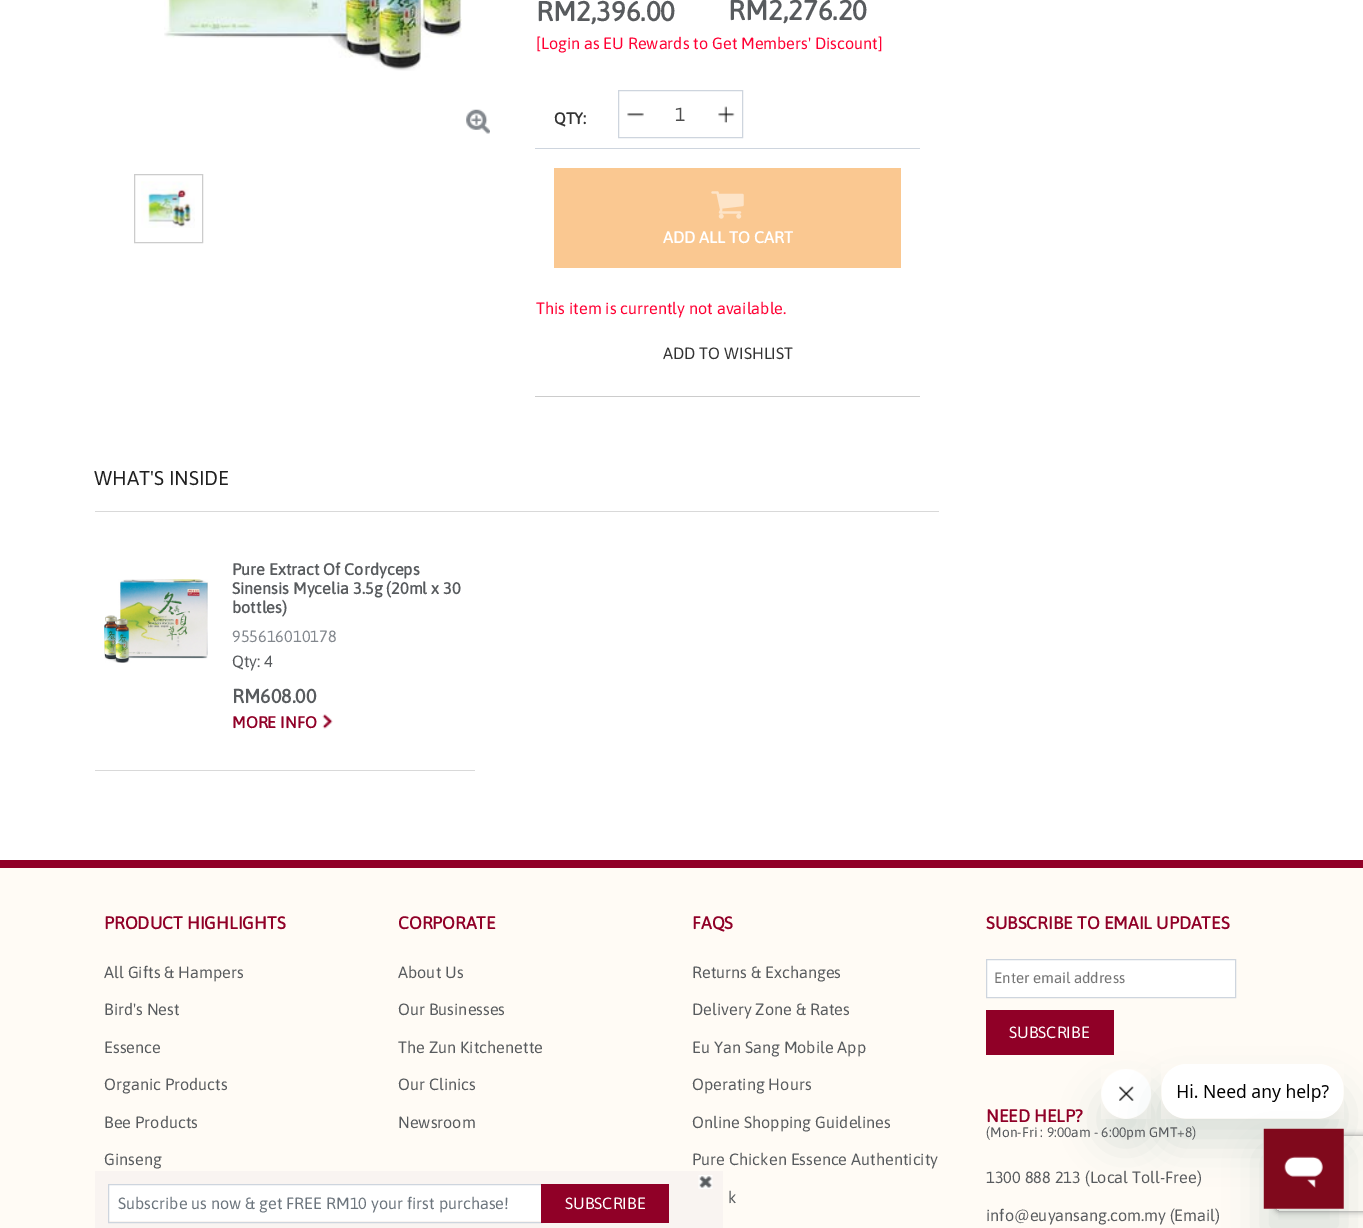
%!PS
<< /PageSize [1363 1228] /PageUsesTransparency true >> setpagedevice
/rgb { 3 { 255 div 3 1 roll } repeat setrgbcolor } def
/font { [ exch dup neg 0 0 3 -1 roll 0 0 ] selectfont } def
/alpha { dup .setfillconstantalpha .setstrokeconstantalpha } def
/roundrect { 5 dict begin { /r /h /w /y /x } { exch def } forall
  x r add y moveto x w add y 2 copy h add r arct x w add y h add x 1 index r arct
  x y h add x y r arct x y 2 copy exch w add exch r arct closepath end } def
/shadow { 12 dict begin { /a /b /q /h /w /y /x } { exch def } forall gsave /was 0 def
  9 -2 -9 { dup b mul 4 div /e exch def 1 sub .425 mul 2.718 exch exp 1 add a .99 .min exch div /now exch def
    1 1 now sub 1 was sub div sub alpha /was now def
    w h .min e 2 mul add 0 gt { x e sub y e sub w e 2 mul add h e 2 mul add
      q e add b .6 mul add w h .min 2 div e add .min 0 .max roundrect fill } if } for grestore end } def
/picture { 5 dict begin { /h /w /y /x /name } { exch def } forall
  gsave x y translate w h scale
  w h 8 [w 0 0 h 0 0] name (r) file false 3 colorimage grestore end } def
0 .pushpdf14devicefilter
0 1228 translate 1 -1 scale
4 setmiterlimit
255 255 255 rgb
0 0 1363 1228 rectfill
(img/1.rgb) 164 0 298 71 picture
(img/2.rgb) 466 109 24 25 picture
204 204 204 rgb
134.5 174.5 68 68 rectstroke
(img/3.rgb) 141 181 54 47 picture
206 213 222 rgb
618.5 90.5 124 47 rectstroke
(img/4.rgb) 627 113 17 4 picture
(img/5.rgb) 718 106 17 17 picture
535 148 385 1 rectfill
250 200 145 rgb
554 168 347 100 rectfill
(img/6.rgb) 711 191 33 28 picture
[
  [535 396 385 1 204 204 204]
  [95 511 844 1 217 217 217]
  [95 770 380 1 217 217 217]
] { aload pop rgb rectfill } forall
(img/7.rgb) 104 579 104 84 picture
(img/8.rgb) 322 714 11 15 picture
255 251 245 rgb
0 868 1363 360 rectfill
145 0 39 rgb
0 860 1363 8 rectfill
255 255 255 rgb
986.5 959.5 moveto 1235.5 959.5 lineto 1235.5 997.5 lineto 986.5 997.5 lineto closepath gsave fill grestore
206 213 222 rgb
stroke
144 0 39 rgb
986 1010 128 45 rectfill
249 244 241 rgb
95 1171 628 57 rectfill
(img/9.rgb) 698 1175 15 14 picture
255 255 255 rgb
109 1185 432 36 rectfill
206 213 222 rgb
108.5 1184.5 434 38 rectstroke
144 0 39 rgb
541 1184 128 39 rectfill
23 73 77 rgb
1101 1094 50 50 25 19 0.15 shadow
(img/11.rgb) 1101 1069 50 50 picture
1161 1089 183 55 25 19 0.15 shadow
(img/10.rgb) 1161 1064 183 55 picture
1264 1154 80 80 0 19 0.15 shadow
gsave
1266 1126 moveto 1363 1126 lineto 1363 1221 lineto 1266 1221 lineto closepath 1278.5 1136 moveto 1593.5 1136 lineto 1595 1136 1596 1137 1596 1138.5 curveto 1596 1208.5 lineto 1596 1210 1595 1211 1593.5 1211 curveto 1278.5 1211 lineto 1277 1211 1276 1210 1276 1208.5 curveto 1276 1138.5 lineto 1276 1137 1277 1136 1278.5 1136 curveto closepath eoclip newpath
128 128 128 rgb
1276 1136 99 75 2.5 3 1 shadow
grestore
(img/12.rgb) 1263 1128 81 81 picture
/Asap-Bold 27.5 font
88 91 94 rgb
536 21 moveto (RM2,396.00) show
728 20 moveto (RM2,276.20) show
/Asap-Regular 16.25 font
255 0 51 rgb
536 49 moveto ([Login as EU Rewards to Get Members' Discount]) show
/Asap-Bold 16 font
51 51 51 rgb
554 124 moveto (QTY:) show
/Asap-Regular 19 font
77 77 77 rgb
675 121 moveto (1) show
/Asap-Bold 16.25 font
255 255 255 rgb
663 243 moveto (ADD ALL TO CART) show
/Asap-Regular 16.25 font
255 0 51 rgb
536 314 moveto (This item is currently not available.) show
51 51 51 rgb
663 359 moveto (ADD TO WISHLIST) show
/Asap-Regular 20 font
32 32 32 rgb
94 485 moveto (WHAT'S INSIDE) show
/Asap-Bold 16.25 font
88 91 94 rgb
[
  [(Pure Extract Of Cordyceps) 232 575]
  [(Sinensis Mycelia 3.5g \(20ml x 30) 232 594]
  [(bottles\)) 232 613]
] { aload pop moveto show } forall
/Asap-Regular 16.25 font
130 135 141 rgb
232 642 moveto (955616010178) show
88 91 94 rgb
232 667 moveto (Qty: 4) show
/Asap-Bold 19.5 font
232 703 moveto (RM608.00) show
/Asap-Bold 16.25 font
144 0 39 rgb
232 728 moveto (MORE INFO) show
/Asap-Bold 17.5 font
104 929 moveto (PRODUCT HIGHLIGHTS) show
/Asap-Regular 16.25 font
88 91 94 rgb
[
  [(All Gifts & Hampers) 104 978]
  [(Bird's Nest) 104 1015]
  [(Essence) 104 1053]
  [(Organic Products) 104 1090]
  [(Bee Products) 104 1128]
  [(Ginseng) 104 1165]
] { aload pop moveto show } forall
/Asap-Bold 17.5 font
144 0 39 rgb
398 929 moveto (CORPORATE) show
/Asap-Regular 16.25 font
88 91 94 rgb
[
  [(About Us) 398 978]
  [(Our Businesses) 398 1015]
  [(The Zun Kitchenette) 398 1053]
  [(Our Clinics) 398 1090]
  [(Newsroom) 398 1128]
] { aload pop moveto show } forall
/Asap-Bold 17.5 font
144 0 39 rgb
692 929 moveto (FAQS) show
/Asap-Regular 16.25 font
88 91 94 rgb
[
  [(Returns & Exchanges) 692 978]
  [(Delivery Zone & Rates) 692 1015]
  [(Eu Yan Sang Mobile App) 692 1053]
  [(Operating Hours) 692 1090]
  [(Online Shopping Guidelines) 692 1128]
  [(Pure Chicken Essence Authenticity) 692 1165]
  [(k) 728 1203]
] { aload pop moveto show } forall
/Asap-Bold 17.5 font
144 0 39 rgb
986 929 moveto (SUBSCRIBE TO EMAIL UPDATES) show
/Asap-Regular 15 font
117 117 117 rgb
994 983 moveto (Enter email address) show
/Asap-Regular 16.25 font
255 255 255 rgb
1009 1038 moveto (SUBSCRIBE) show
/Asap-Bold 17.5 font
144 0 39 rgb
986 1122 moveto (NEED HELP?) show
/Asap-Regular 13.75 font
88 91 94 rgb
986 1137 moveto (\(Mon-Fri : 9:00am - 6:00pm GMT+8\)) show
/Asap-Regular 16.25 font
986 1183 moveto (1300 888 213 \(Local Toll-Free\)) show
986 1221 moveto (info@euyansang.com.my \(Email\)) show
108 117 125 rgb
118 1209 moveto (Subscribe us now & get FREE RM10 your first purchase!) show
255 255 255 rgb
565 1209 moveto (SUBSCRIBE) show
.poppdf14devicefilter showpage
